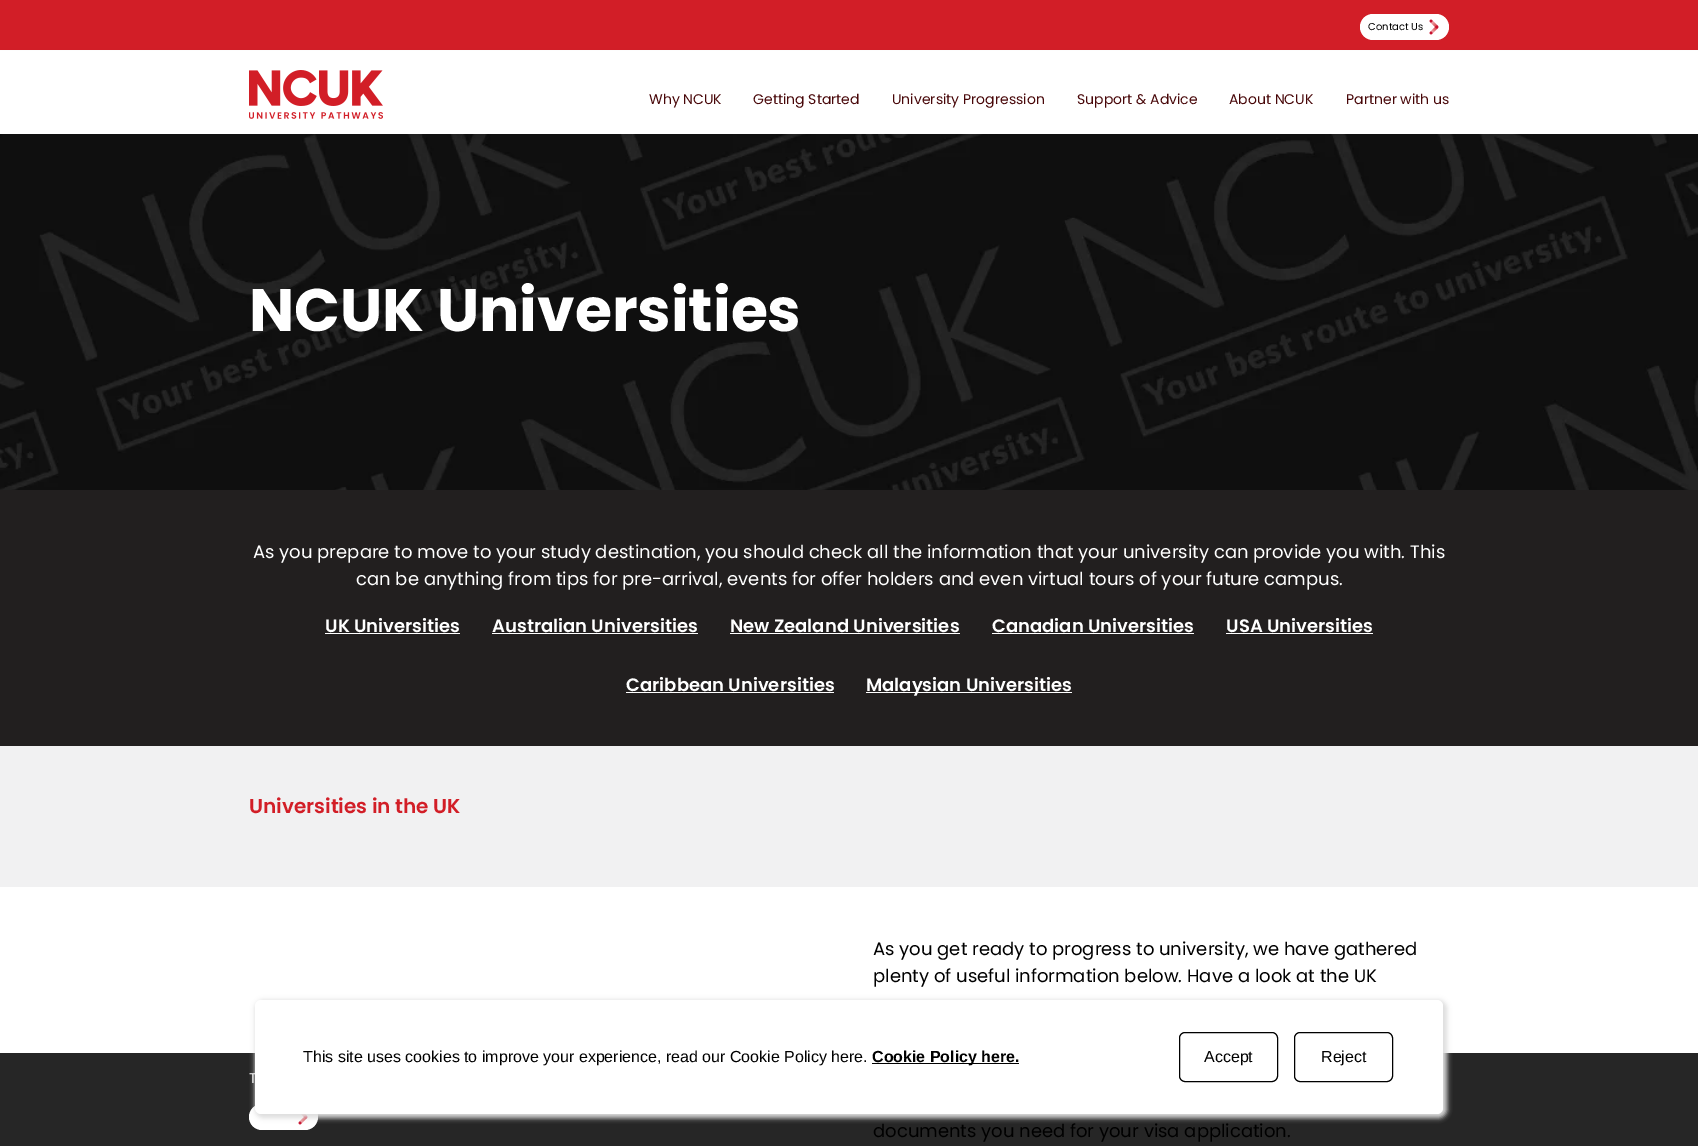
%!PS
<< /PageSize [1698 1146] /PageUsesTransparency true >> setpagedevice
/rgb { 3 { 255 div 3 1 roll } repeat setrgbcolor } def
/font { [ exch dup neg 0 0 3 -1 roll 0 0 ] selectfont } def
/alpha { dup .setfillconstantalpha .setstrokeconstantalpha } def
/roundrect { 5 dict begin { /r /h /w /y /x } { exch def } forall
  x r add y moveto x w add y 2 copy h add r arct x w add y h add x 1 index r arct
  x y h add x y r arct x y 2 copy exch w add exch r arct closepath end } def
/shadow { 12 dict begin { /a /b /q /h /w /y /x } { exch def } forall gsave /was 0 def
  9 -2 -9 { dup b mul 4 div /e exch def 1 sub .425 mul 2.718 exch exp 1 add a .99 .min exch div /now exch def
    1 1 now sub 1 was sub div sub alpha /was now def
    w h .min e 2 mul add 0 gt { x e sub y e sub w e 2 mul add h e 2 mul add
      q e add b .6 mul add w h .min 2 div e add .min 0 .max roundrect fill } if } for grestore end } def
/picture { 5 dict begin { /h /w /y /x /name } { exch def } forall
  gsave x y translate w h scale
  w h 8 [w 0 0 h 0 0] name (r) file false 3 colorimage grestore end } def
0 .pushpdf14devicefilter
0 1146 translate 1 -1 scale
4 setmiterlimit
255 255 255 rgb
0 0 1698 1146 rectfill
38 38 38 rgb
0 1053 1698 93 rectfill
210 30 39 rgb
0 0 1698 50 rectfill
255 255 255 rgb
1360 14 89 26 13 roundrect fill
(img/1.rgb) 1429 19 10 16 picture
(img/3.rgb) 0 134 1698 356 picture
0 0 0 rgb
1 55 1696 82 0 3 0.1 shadow
255 255 255 rgb
0 51 1698 83 rectfill
(img/2.rgb) 249 70 134 49 picture
[
  [0 490 1698 256 34 31 31]
  [325 633 135 1 255 255 255]
  [492 633 206 1 255 255 255]
  [730 633 230 1 255 255 255]
  [992 633 202 1 255 255 255]
  [1226 633 147 1 255 255 255]
  [626 692 208 1 255 255 255]
  [866 692 206 1 255 255 255]
  [0 746 1698 141 241 241 242]
] { aload pop rgb rectfill } forall
255 255 255 rgb
249 1104 69 26 13 roundrect fill
(img/4.rgb) 298 1114 10 11 picture
221 221 221 rgb
255 1000 1192 118 8 2.5 1 shadow
255 255 255 rgb
255 1000 1188 114 6 roundrect fill
0 0 0 rgb
872 1063 147 1 rectfill
1179.5 1032.5 98 49 5.5 roundrect stroke
1294.5 1032.5 98 49 5.5 roundrect stroke
/Poppins-Regular 10 font
1368 30 moveto (Contact Us) show
/Poppins-Regular 14 font
72 7 9 rgb
[
  [(Why NCUK) 649 104]
  [(Getting Started) 753 104]
  [(University Progression) 892 104]
  [(Support & Advice) 1077 104]
  [(About NCUK) 1229 104]
  [(Partner with us) 1346 104]
] { aload pop moveto show } forall
/Poppins-Bold 60 font
255 255 255 rgb
249 331 moveto (NCUK Universities) show
/Poppins-Regular 18 font
253 558 moveto (As you prepare to move to your study destination, you should check all the information that your university can provide you with. This) show
356 585 moveto (can be anything from tips for pre-arrival, events for offer holders and even virtual tours of your future campus.) show
/Poppins-SemiBold 18 font
[
  [(UK Universities) 325 632]
  [(Australian Universities) 492 632]
  [(New Zealand Universities) 730 632]
  [(Canadian Universities) 992 632]
  [(USA Universities) 1226 632]
  [(Caribbean Universities) 626 691]
  [(Malaysian Universities) 866 691]
] { aload pop moveto show } forall
/Poppins-SemiBold 20 font
210 30 39 rgb
249 813 moveto (Universities in the UK) show
/Poppins-Regular 18 font
0 0 0 rgb
[
  [(As you get ready to progress to university, we have gathered) 873 955]
  [(plenty of useful information below. Have a look at the UK) 873 982]
  [(documents you need for your visa application.) 873 1137]
] { aload pop moveto show } forall
/LiberationSans-Regular 16 font
303 1062 moveto (This site uses cookies to improve your experience, read our Cookie Policy here.) show
/LiberationSans-Bold 16 font
872 1062 moveto (Cookie Policy here.) show
/LiberationSans-Regular 16 font
1204 1062 moveto (Accept) show
1321 1062 moveto (Reject) show
/Poppins-Regular 14 font
255 255 255 rgb
249 1083 moveto (T) show
.poppdf14devicefilter showpage
